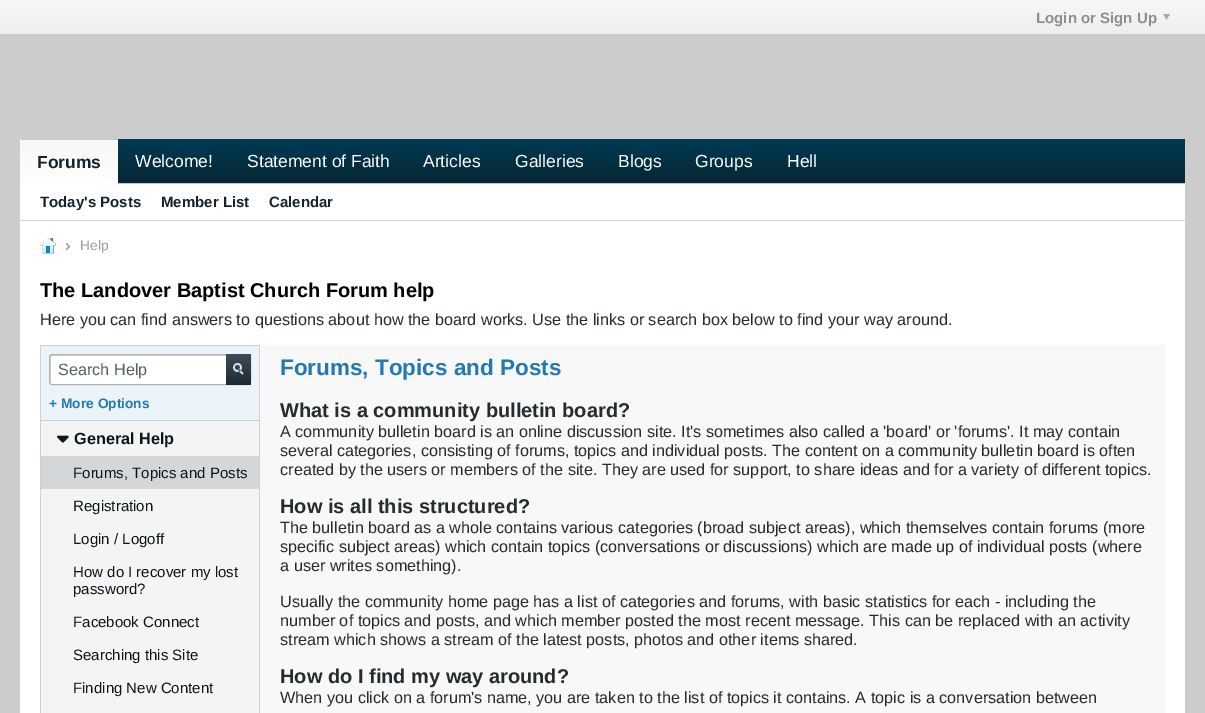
%!PS
<< /PageSize [1205 713] >> setpagedevice
/rgb { 3 { 255 div 3 1 roll } repeat setrgbcolor } def
/font { [ exch dup neg 0 0 3 -1 roll 0 0 ] selectfont } def
/roundrect { 5 dict begin { /r /h /w /y /x } { exch def } forall
  x r add y moveto x w add y 2 copy h add r arct x w add y h add x 1 index r arct
  x y h add x y r arct x y 2 copy exch w add exch r arct closepath end } def
/picture { 5 dict begin { /h /w /y /x /name } { exch def } forall
  gsave x y translate w h scale
  w h 8 [w 0 0 h 0 0] name (r) file false 3 colorimage grestore end } def
0 713 translate 1 -1 scale
4 setmiterlimit
204 204 204 rgb
0 0 1205 713 rectfill
gsave 0 0 moveto 1205 0 lineto 1205 34 lineto 0 34 lineto closepath clip newpath
<< /ShadingType 2 /ColorSpace /DeviceRGB /Coords [603 0 603 34] /Extend [true true] /Function << /FunctionType 2 /Domain [0 1] /C0 [0.973 0.973 0.973] /C1 [0.937 0.929 0.933] /N 1 >> >> shfill grestore
199 200 201 rgb
0 34 1205 1 rectfill
(img/1.rgb) 1163 14 7 6 picture
gsave 20 139 moveto 1185 139 lineto 1185 183 lineto 20 183 lineto closepath clip newpath
<< /ShadingType 2 /ColorSpace /DeviceRGB /Coords [603 139 603 183] /Extend [true true] /Function << /FunctionType 2 /Domain [0 1] /C0 [0.004 0.227 0.329] /C1 [0.02 0.153 0.2] /N 1 >> >> shfill grestore
196 199 200 rgb
118 183 1067 1 rectfill
gsave 21 139 moveto 117 139 lineto 117.5 139 118 139.5 118 140 curveto 20 140 lineto 20 139.5 20.5 139 21 139 curveto closepath clip newpath
<< /ShadingType 2 /ColorSpace /DeviceRGB /Coords [69 96 69 140] /Extend [true true] /Function << /FunctionType 2 /Domain [0 1] /C0 [0.969 0.969 0.969] /C1 [1 1 1] /N 1 >> >> shfill grestore
gsave 20 140 moveto 118 140 lineto 118 184 lineto 20 184 lineto closepath clip newpath
<< /ShadingType 2 /ColorSpace /DeviceRGB /Coords [69 140 69 184] /Extend [true true] /Function << /FunctionType 2 /Domain [0 1] /C0 [0.969 0.969 0.969] /C1 [1 1 1] /N 1 >> >> shfill grestore
[
  [21 139 97 1 196 199 200]
  [20 184 1165 36 255 255 255]
  [20 220 1165 1 211 213 214]
  [20 221 1165 492 255 255 255]
] { aload pop rgb rectfill } forall
(img/2.rgb) 40 238 16 16 picture
(img/3.rgb) 65 243 5 7 picture
[
  [41 346 218 74 235 244 249]
  [40 345 220 1 204 209 213]
  [259 345 1 368 204 209 213]
  [40 345 1 368 204 209 213]
] { aload pop rgb rectfill } forall
255 255 255 rgb
49 354 202 31 3 roundrect fill
213 213 213 rgb
53 356 moveto 250 356 lineto 248 355 lineto 52 355 lineto 51 355 50 356 50 357 curveto 50 374 lineto 50 375 49 383 51 384 curveto 51 362 lineto 51 361 50 356 53 356 curveto closepath fill
174 179 182 rgb
49.5 354.5 201 30 2.5 roundrect stroke
gsave 226 354 moveto 248 354 lineto 249.5 354 251 355.5 251 357 curveto 251 382 lineto 251 383.5 249.5 385 248 385 curveto 226 385 lineto closepath clip newpath
<< /ShadingType 2 /ColorSpace /DeviceRGB /Coords [239 354 239 385] /Extend [true true] /Function << /FunctionType 2 /Domain [0 1] /C0 [0.251 0.302 0.353] /C1 [0.11 0.161 0.192] /N 1 >> >> shfill grestore
(img/4.rgb) 233 363 11 12 picture
244 244 244 rgb
41 421 218 292 rectfill
204 209 213 rgb
41 420 218 1 rectfill
(img/5.rgb) 57 435 12 8 picture
211 215 218 rgb
41 456 218 33 rectfill
248 248 248 rgb
260 345 905 368 rectfill
/LiberationSans-Bold 15 font
142 142 142 rgb
1036 23 moveto (Login or Sign Up) show
/LiberationSans-Bold 17.5 font
19 36 47 rgb
37 168 moveto (Forums) show
/LiberationSans-Regular 17.5 font
255 255 255 rgb
[
  [(Welcome!) 135 167]
  [(Statement of Faith) 247 167]
  [(Articles) 423 167]
  [(Galleries) 515 167]
  [(Blogs) 618 167]
  [(Groups) 695 167]
  [(Hell) 787 167]
] { aload pop moveto show } forall
/LiberationSans-Bold 15 font
19 36 47 rgb
[
  [(Today's Posts) 40 207]
  [(Member List) 161 207]
  [(Calendar) 269 207]
] { aload pop moveto show } forall
/LiberationSans-Regular 13.75 font
158 157 157 rgb
80 250 moveto (Help) show
/LiberationSans-Bold 20 font
0 0 0 rgb
40 297 moveto (The Landover Baptist Church Forum help) show
/LiberationSans-Regular 16.22 font
37 44 47 rgb
40 325 moveto (Here you can find answers to questions about how the board works. Use the links or search box below to find your way around.) show
85 96 101 rgb
58 375 moveto (Search Help) show
/LiberationSans-Bold 13.75 font
35 121 181 rgb
49 408 moveto (+ More Options) show
/LiberationSans-Bold 16.22 font
9 22 27 rgb
74 444 moveto (General Help) show
/LiberationSans-Regular 15 font
[
  [(Forums, Topics and Posts) 73 478]
  [(Registration) 73 511]
  [(Login / Logoff) 73 544]
  [(How do I recover my lost) 73 577]
  [(password?) 73 594]
  [(Facebook Connect) 73 627]
  [(Searching this Site) 73 660]
  [(Finding New Content) 73 693]
] { aload pop moveto show } forall
/LiberationSans-Bold 22.5 font
35 121 181 rgb
280 375 moveto (Forums, Topics and Posts) show
/LiberationSans-Bold 20 font
37 44 47 rgb
280 417 moveto (What is a community bulletin board?) show
/LiberationSans-Regular 16.22 font
[
  [(A community bulletin board is an online discussion site. It's sometimes also called a 'board' or 'forums'. It may contain) 280 437]
  [(several categories, consisting of forums, topics and individual posts. The content on a community bulletin board is often) 280 456]
  [(created by the users or members of the site. They are used for support, to share ideas and for a variety of different topics.) 280 475]
] { aload pop moveto show } forall
/LiberationSans-Bold 20 font
280 513 moveto (How is all this structured?) show
/LiberationSans-Regular 16.22 font
[
  [(The bulletin board as a whole contains various categories \(broad subject areas\), which themselves contain forums \(more) 280 533]
  [(specific subject areas\) which contain topics \(conversations or discussions\) which are made up of individual posts \(where) 280 552]
  [(a user writes something\).) 280 571]
  [(Usually the community home page has a list of categories and forums, with basic statistics for each - including the) 280 607]
  [(number of topics and posts, and which member posted the most recent message. This can be replaced with an activity) 280 626]
  [(stream which shows a stream of the latest posts, photos and other items shared.) 280 645]
] { aload pop moveto show } forall
/LiberationSans-Bold 20 font
280 683 moveto (How do I find my way around?) show
/LiberationSans-Regular 16.22 font
280 703 moveto (When you click on a forum's name, you are taken to the list of topics it contains. A topic is a conversation between) show
showpage
